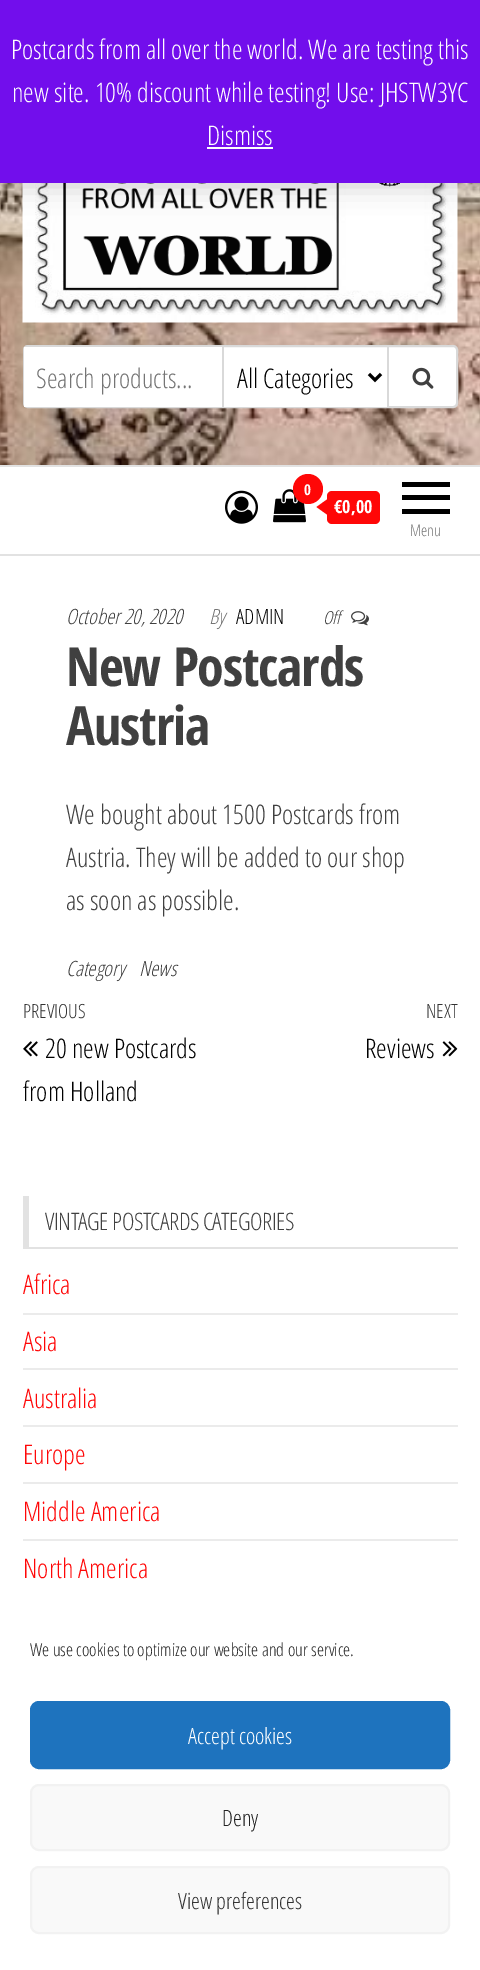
%!PS
<< /PageSize [480 1970] /PageUsesTransparency true >> setpagedevice
/rgb { 3 { 255 div 3 1 roll } repeat setrgbcolor } def
/font { [ exch dup neg 0 0 3 -1 roll 0 0 ] selectfont } def
/alpha { dup .setfillconstantalpha .setstrokeconstantalpha } def
/circle { newpath 0 360 arc closepath } def
/roundrect { 5 dict begin { /r /h /w /y /x } { exch def } forall
  x r add y moveto x w add y 2 copy h add r arct x w add y h add x 1 index r arct
  x y h add x y r arct x y 2 copy exch w add exch r arct closepath end } def
/shadow { 12 dict begin { /a /b /q /h /w /y /x } { exch def } forall gsave /was 0 def
  9 -2 -9 { dup b mul 4 div /e exch def 1 sub .425 mul 2.718 exch exp 1 add a .99 .min exch div /now exch def
    1 1 now sub 1 was sub div sub alpha /was now def
    w h .min e 2 mul add 0 gt { x e sub y e sub w e 2 mul add h e 2 mul add
      q e add b .6 mul add w h .min 2 div e add .min 0 .max roundrect fill } if } for grestore end } def
/picture { 5 dict begin { /h /w /y /x /name } { exch def } forall
  gsave x y translate w h scale
  w h 8 [w 0 0 h 0 0] name (r) file false 3 colorimage grestore end } def
0 .pushpdf14devicefilter
0 1970 translate 1 -1 scale
4 setmiterlimit
255 255 255 rgb
0 0 480 1970 rectfill
(img/1.rgb) 0 183 480 282 picture
(img/2.rgb) 22 183 436 140 picture
0 0 0 rgb
0 2 480 183 0 13.5 0.2 shadow
114 14 236 rgb
0 0 480 183 rectfill
252 251 254 rgb
207 147 66 2 rectfill
255 255 255 rgb
24 346 433 61 4 roundrect gsave fill grestore
217 217 217 rgb
2 setlinewidth
stroke
[
  [24 347 198 60 255 255 255]
  [222 347 2 60 217 217 217]
  [224 406 163 1 255 255 255]
] { aload pop rgb rectfill } forall
0 0 0 rgb
3 setlinewidth
369 374 moveto 375 380 lineto 381 374 lineto stroke
217 217 217 rgb
387 347 2 60 rectfill
(img/3.rgb) 412 367 22 22 picture
226 226 226 rgb
0 465 480 2 rectfill
0 554 480 2 rectfill
(img/4.rgb) 225 490 33 34 picture
(img/5.rgb) 273 489 33 34 picture
255 7 7 rgb
308 489 15 circle fill
327 491 53 33 5 roundrect fill
327 499.5 moveto 327 514.5 lineto 316.5 507 lineto closepath fill
[
  [402 482 48 5 0 0 0]
  [402 495 48 5 0 0 0]
  [402 509 48 5 0 0 0]
] { aload pop rgb rectfill } forall
(img/6.rgb) 351 611 18 15 picture
(img/7.rgb) 23 1041 15 16 picture
(img/8.rgb) 442 1041 16 16 picture
[
  [23 1247 435 2 226 226 226]
  [23 1196 6 51 226 226 226]
  [23 1313 435 2 235 235 235]
  [23 1368 435 2 235 235 235]
  [23 1425 435 2 235 235 235]
  [23 1482 435 2 235 235 235]
  [23 1539 435 2 235 235 235]
] { aload pop rgb rectfill } forall
30 115 190 rgb
31 1702 418 66 8 roundrect gsave fill grestore
2 setlinewidth
stroke
249 249 249 rgb
31 1785 418 65 8 roundrect gsave fill grestore
242 242 242 rgb
stroke
249 249 249 rgb
31 1867 418 66 8 roundrect gsave fill grestore
242 242 242 rgb
stroke
/OpenSansCondensed-Light 27 font
255 255 255 rgb
[
  [(Postcards from all over the world. We are testing this) 11 59]
  [(new site. 10% discount while testing! Use: JHSTW3YC) 12 102]
  [(Dismiss) 207 145]
] { aload pop moveto show } forall
117 117 117 rgb
36 388 moveto (Search products...) show
0 0 0 rgb
237 388 moveto (All Categories) show
/OpenSansCondensed-Bold 15 font
255 255 255 rgb
304 495 moveto (0) show
/OpenSansCondensed-Bold 18 font
334 513 moveto (€0,00) show
/OpenSansCondensed-Light 16 font
117 117 117 rgb
410 536 moveto (Menu) show
/OpenSansCondensed-LightItalic 21 font
64 64 64 rgb
66 624 moveto (October 20, 2020) show
117 117 117 rgb
209 624 moveto (By) show
/OpenSansCondensed-Light 21 font
0 0 0 rgb
236 624 moveto (ADMIN) show
/OpenSansCondensed-LightItalic 18 font
64 64 64 rgb
323 624 moveto (Off) show
/OpenSansCondensed-Bold 54 font
66 686 moveto -1.1 0 (New Postcards) ashow
66 745 moveto -1.1 0 (Austria) ashow
/OpenSansCondensed-Light 27 font
[
  [(We bought about 1500 Postcards from) 66 824]
  [(Austria. They will be added to our shop) 66 867]
  [(as soon as possible.) 66 910]
] { aload pop moveto show } forall
/OpenSansCondensed-LightItalic 21 font
66 976 moveto (Category) show
139 976 moveto (News) show
/OpenSansCondensed-Light 19.5 font
51 51 51 rgb
23 1018 moveto (PREVIOUS) show
/OpenSansCondensed-Light 27 font
0 0 0 rgb
45 1058 moveto (20 new Postcards) show
23 1101 moveto (from Holland) show
/OpenSansCondensed-Light 19.5 font
51 51 51 rgb
426 1018 moveto (NEXT) show
/OpenSansCondensed-Light 27 font
0 0 0 rgb
365 1058 moveto (Reviews) show
/OpenSansCondensed-Light 24 font
64 64 64 rgb
45 1230 moveto -0.5 0 (VINTAGE POSTCARDS CATEGORIES) ashow
/OpenSansCondensed-Light 27 font
255 7 7 rgb
[
  [(Africa) 23 1294]
  [(Asia) 23 1351]
  [(Australia) 23 1408]
  [(Europe) 23 1464]
  [(Middle America) 23 1521]
  [(North America) 23 1578]
] { aload pop moveto show } forall
/OpenSansCondensed-Light 18 font
34 34 34 rgb
30 1656 moveto (We use cookies to optimize our website and our service.) show
/OpenSansCondensed-Light 22.5 font
255 255 255 rgb
188 1744 moveto (Accept cookies) show
34 34 34 rgb
222 1826 moveto (Deny) show
51 51 51 rgb
178 1909 moveto (View preferences) show
.poppdf14devicefilter showpage
